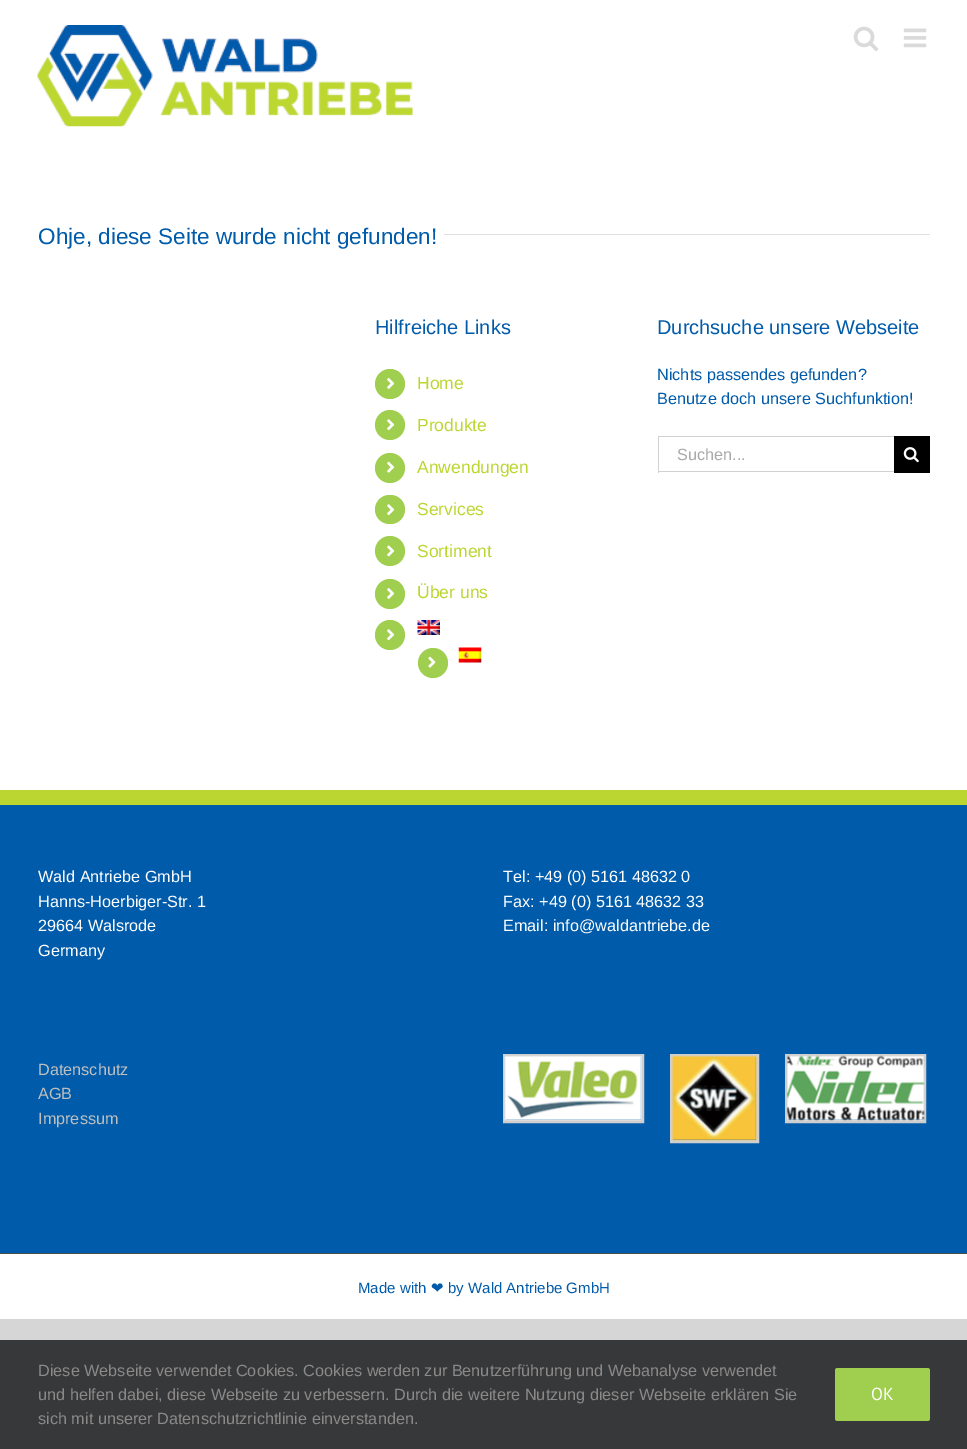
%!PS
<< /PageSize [967 1449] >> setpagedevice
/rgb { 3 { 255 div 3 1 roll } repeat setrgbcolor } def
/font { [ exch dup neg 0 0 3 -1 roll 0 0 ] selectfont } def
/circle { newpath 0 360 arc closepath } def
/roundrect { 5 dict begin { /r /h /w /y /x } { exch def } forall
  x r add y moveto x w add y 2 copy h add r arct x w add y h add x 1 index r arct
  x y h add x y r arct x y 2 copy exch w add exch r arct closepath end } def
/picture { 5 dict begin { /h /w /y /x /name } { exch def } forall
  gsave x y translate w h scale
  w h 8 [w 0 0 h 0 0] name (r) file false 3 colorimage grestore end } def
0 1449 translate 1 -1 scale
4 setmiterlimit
215 214 214 rgb
0 0 967 1449 rectfill
255 255 255 rgb
0 0 967 1319 rectfill
(img/1.rgb) 37 25 376 102 picture
(img/2.rgb) 853 26 25 25 picture
(img/3.rgb) 903 28 24 20 picture
224 222 222 rgb
444 234 486 1 rectfill
160 206 78 rgb
390 384 15 circle fill
(img/4.rgb) 387 378 8 11 picture
390 425 15 circle fill
(img/5.rgb) 387 419 8 12 picture
390 468 15 circle fill
(img/6.rgb) 387 461 8 12 picture
375 495 30 29 14.5 roundrect fill
(img/5.rgb) 387 504 8 12 picture
390 551 15 circle fill
(img/7.rgb) 387 545 8 12 picture
390 594 15 circle fill
(img/4.rgb) 387 588 8 11 picture
390 635 15 circle fill
(img/5.rgb) 387 629 8 12 picture
(img/8.rgb) 417 620 23 15 picture
433 663 15 circle fill
(img/9.rgb) 428 656 8 12 picture
(img/10.rgb) 458 647 24 16 picture
[
  [658 436 236 1 210 210 210]
  [658 471 236 1 210 210 210]
  [658 436 1 37 210 210 210]
  [894 436 36 37 0 0 0]
] { aload pop rgb rectfill } forall
(img/11.rgb) 903 447 16 16 picture
0 91 170 rgb
0 805 967 448 rectfill
188 214 49 rgb
0 790 967 15 rectfill
207 207 207 rgb
3 setlinewidth
504.5 1055.5 138 66 rectstroke
(img/12.rgb) 504 1055 138 66 picture
671.5 1055.5 86 86 rectstroke
(img/13.rgb) 672 1055 85 86 picture
786.5 1055.5 138 66 rectstroke
(img/14.rgb) 787 1055 138 66 picture
75 76 77 rgb
0 1253 967 1 rectfill
54 56 57 rgb
0 1340 967 109 rectfill
160 206 78 rgb
835 1368 95 53 2.5 roundrect fill
/LiberationSans-Regular 22.5 font
0 91 170 rgb
38 244 moveto (Ohje, diese Seite wurde nicht gefunden!) show
/LiberationSans-Regular 20 font
375 334 moveto (Hilfreiche Links) show
/LiberationSans-Regular 17.5 font
188 214 49 rgb
[
  [(Home) 417 389]
  [(Produkte) 417 431]
  [(Anwendungen) 417 473]
  [(Services) 417 515]
  [(Sortiment) 417 557]
  [(Über uns) 417 598]
] { aload pop moveto show } forall
/LiberationSans-Regular 20 font
0 91 170 rgb
657 334 moveto (Durchsuche unsere Webseite) show
/LiberationSans-Regular 16.25 font
657 380 moveto (Nichts passendes gefunden?) show
657 404 moveto (Benutze doch unsere Suchfunktion!) show
170 169 169 rgb
677 460 moveto (Suchen...) show
255 255 255 rgb
[
  [(Wald Antriebe GmbH) 38 882]
  [(Hanns-Hoerbiger-Str. 1) 38 907]
  [(29664 Walsrode) 38 931]
  [(Germany) 38 956]
  [(Tel: +49 \(0\) 5161 48632 0) 503 882]
  [(Fax: +49 \(0\) 5161 48632 33) 503 907]
  [(Email: info@waldantriebe.de) 503 931]
] { aload pop moveto show } forall
191 191 191 rgb
[
  [(Datenschutz) 38 1075]
  [(AGB) 38 1099]
  [(Impressum) 38 1124]
] { aload pop moveto show } forall
/LiberationSans-Regular 15 font
0 91 170 rgb
358 1293 moveto (Made with) show
/DejaVuSans-Regular 15 font
431 1293 moveto (❤) show
/LiberationSans-Regular 15 font
448 1293 moveto (by Wald Antriebe GmbH) show
/LiberationSans-Regular 16.25 font
140 137 137 rgb
[
  [(Diese Webseite verwendet Cookies. Cookies werden zur Benutzerführung und Webanalyse verwendet) 38 1376]
  [(und helfen dabei, diese Webseite zu verbessern. Durch die weitere Nutzung dieser Webseite erklären Sie) 38 1400]
  [(sich mit unserer Datenschutzrichtlinie einverstanden.) 38 1424]
] { aload pop moveto show } forall
/PTSans-Regular 17.5 font
255 255 255 rgb
871 1400 moveto (OK) show
showpage
